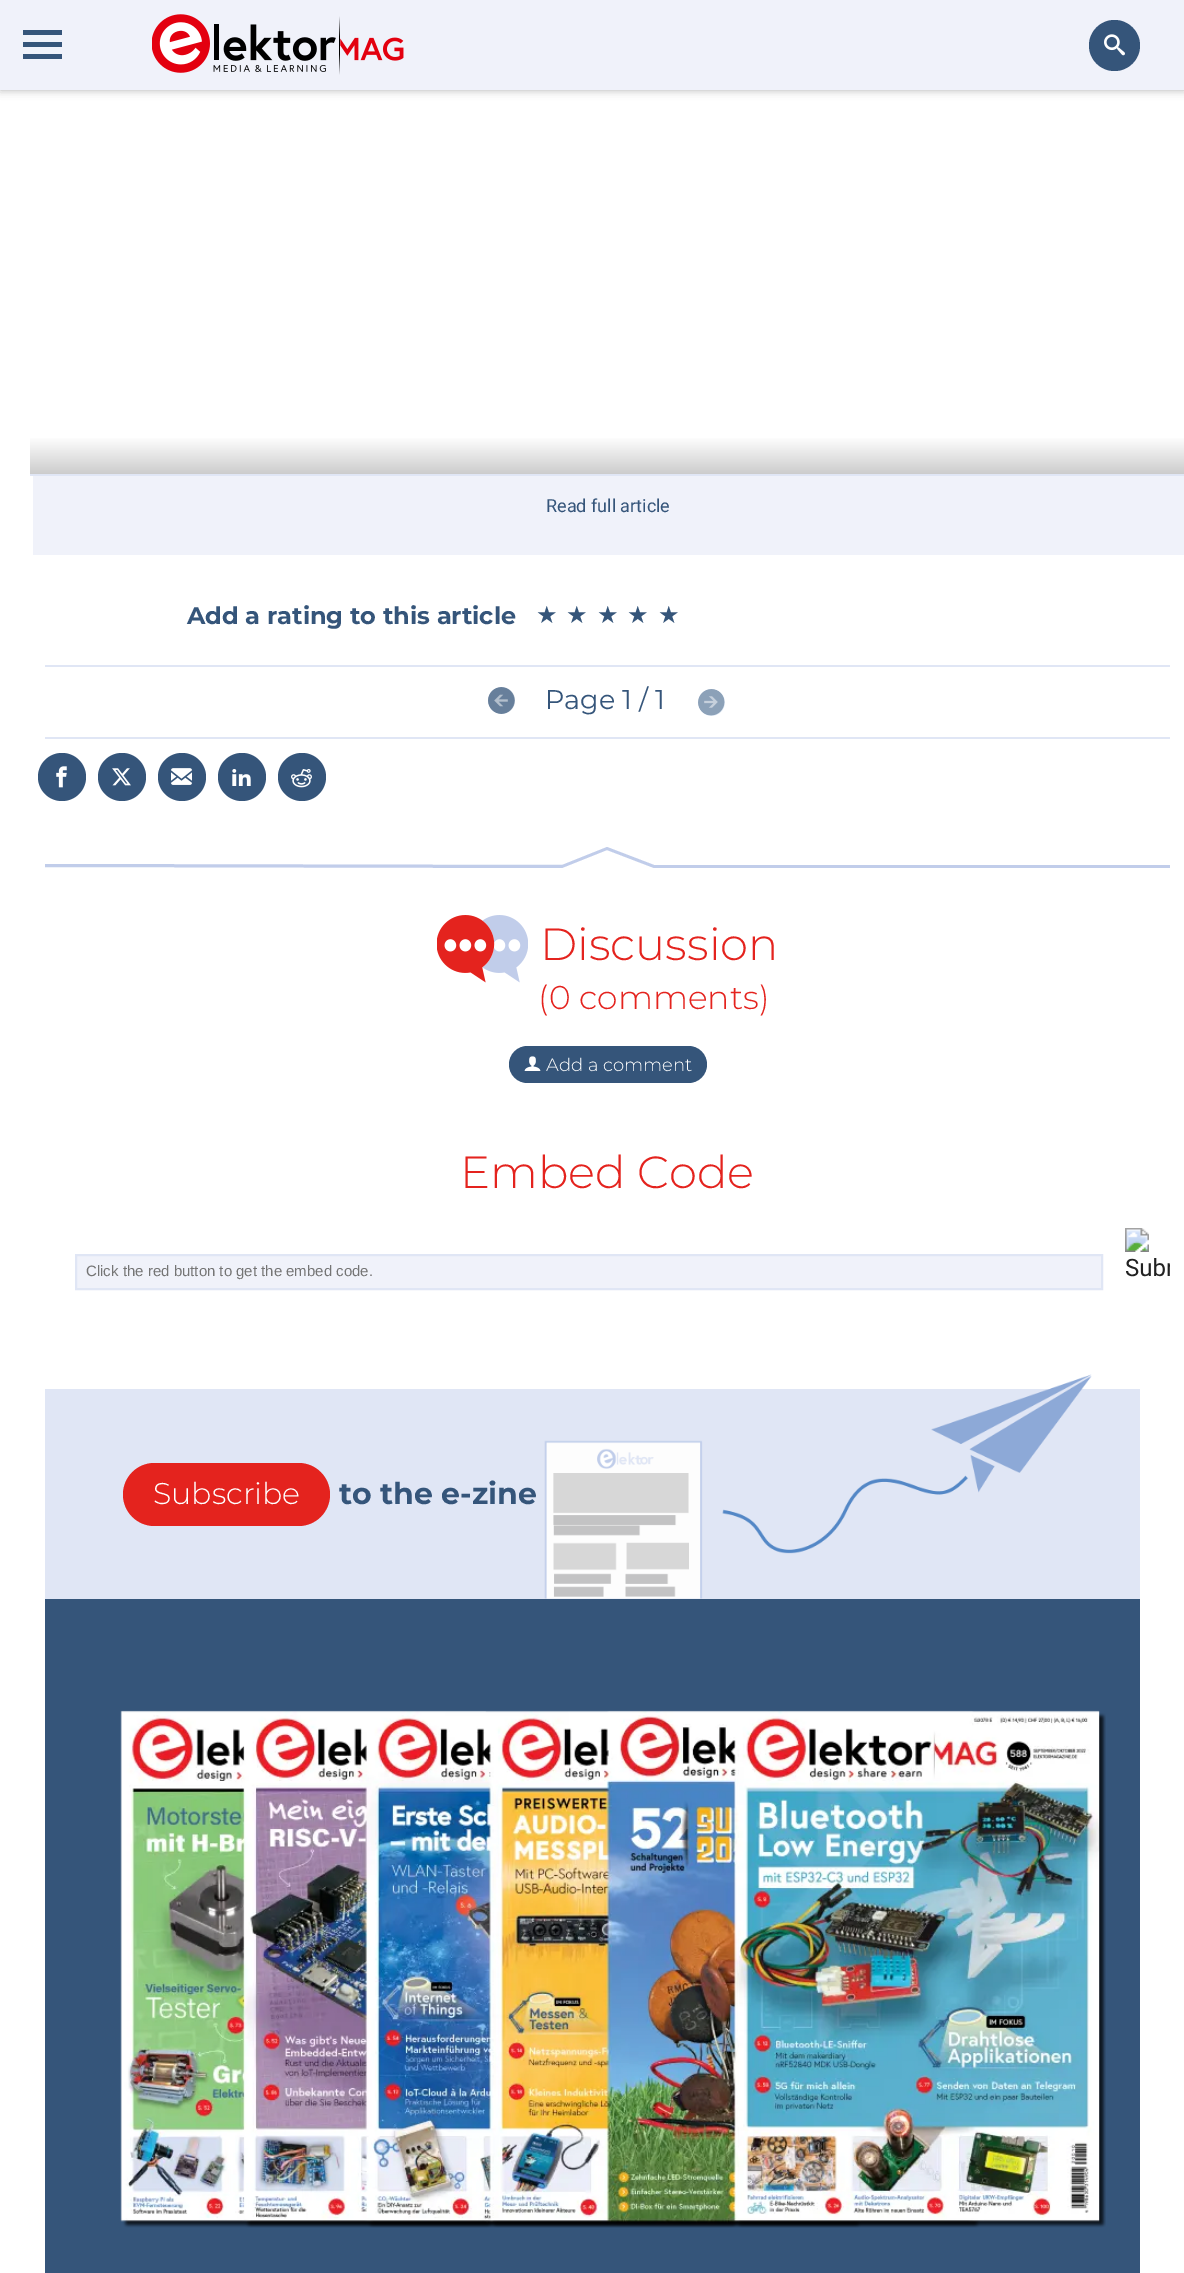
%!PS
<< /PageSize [1184 2273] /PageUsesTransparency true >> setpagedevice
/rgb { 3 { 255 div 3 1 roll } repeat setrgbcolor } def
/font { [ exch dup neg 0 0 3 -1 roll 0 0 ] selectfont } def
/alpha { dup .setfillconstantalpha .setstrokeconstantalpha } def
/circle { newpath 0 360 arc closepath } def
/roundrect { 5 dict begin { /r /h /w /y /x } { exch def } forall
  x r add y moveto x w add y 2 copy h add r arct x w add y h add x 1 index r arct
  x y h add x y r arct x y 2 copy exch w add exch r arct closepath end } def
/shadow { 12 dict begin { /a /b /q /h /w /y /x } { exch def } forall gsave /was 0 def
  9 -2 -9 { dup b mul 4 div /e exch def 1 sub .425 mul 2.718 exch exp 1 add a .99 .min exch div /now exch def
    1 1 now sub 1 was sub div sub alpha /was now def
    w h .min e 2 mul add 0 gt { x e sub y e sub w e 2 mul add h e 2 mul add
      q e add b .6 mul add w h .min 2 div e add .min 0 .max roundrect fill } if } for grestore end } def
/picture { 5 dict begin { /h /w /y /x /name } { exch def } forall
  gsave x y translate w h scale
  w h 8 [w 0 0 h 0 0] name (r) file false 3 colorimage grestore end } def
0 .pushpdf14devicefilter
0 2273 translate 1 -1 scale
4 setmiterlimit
255 255 255 rgb
0 0 1184 2273 rectfill
0 0 0 rgb
0 0 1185 90 0 4.5 0.3 shadow
[
  [0 0 1184 90 240 242 250]
  [23 30 39 5 53 85 122]
  [23 42 39 5 53 85 122]
  [23 54 39 5 53 85 122]
] { aload pop rgb rectfill } forall
(img/1.rgb) 152 14 252 61 picture
1114.5 45.5 25.5 circle fill
(img/2.rgb) 1104 34 21 22 picture
224 230 245 rgb
30 474 1154 2 rectfill
gsave 30 438 moveto 1184 438 lineto 1184 474 lineto 30 474 lineto closepath clip newpath
<< /ShadingType 2 /ColorSpace /DeviceRGB /Coords [628 414 628 474] /Extend [true true] /Function << /FunctionType 3 /Domain [0 1] /Functions [<< /FunctionType 2 /Domain [0 1] /C0 [1 1 1] /C1 [1 1 1] /N 1 >> << /FunctionType 2 /Domain [0 1] /C0 [1 1 1] /C1 [0.8 0.8 0.8] /N 1 >>] /Bounds [0.37] /Encode [0 1 0 1] >> >> shfill grestore
[
  [33 476 12 79 240 242 250]
  [45 476 1139 79 240 242 250]
  [45 665 1125 2 224 230 245]
  [45 737 1125 2 224 230 245]
] { aload pop rgb rectfill } forall
154 170 189 rgb
501.5 700.5 13.5 circle fill
(img/3.rgb) 488 687 27 27 picture
228 237 247 rgb
711.5 702.5 13.5 circle fill
(img/4.rgb) 698 689 27 27 picture
53 85 122 rgb
62 777 24 circle fill
(img/5.rgb) 56 766 11 22 picture
122 777 24 circle fill
(img/6.rgb) 112 768 19 18 picture
182 777 24 circle fill
(img/7.rgb) 171 768 21 17 picture
242 777 24 circle fill
(img/8.rgb) 232 769 19 17 picture
302 777 24 circle fill
(img/9.rgb) 291 768 21 20 picture
193 205 234 rgb
1170 868 moveto 654 868 lineto 607 850 lineto 562 868 lineto 45 867 lineto 45 864 lineto 562 865 lineto 607 847 lineto 654 865 lineto 1170 865 lineto closepath fill
(img/10.rgb) 437 915 91 68 picture
53 85 122 rgb
509 1046 198 37 18.5 roundrect fill
(img/11.rgb) 524 1056 17 15 picture
240 242 250 rgb
76 1255 moveto 1102 1255 lineto 1102 1289 lineto 76 1289 lineto closepath gsave fill grestore
224 230 245 rgb
2 setlinewidth
stroke
(img/12.rgb) 1125 1228 45 49 picture
45 1389 1095 210 rectfill
228 35 30 rgb
123 1463 207 63 31.5 roundrect fill
(img/13.rgb) 544 1374 548 225 picture
53 85 122 rgb
45 1599 1095 674 rectfill
(img/14.rgb) 120 1710 986 518 picture
/Roboto-Regular 18 font
546 512 moveto (Read full article) show
/Montserrat-Bold 24 font
187 624 moveto (Add a rating to this article) show
/DejaVuSans-Regular 24 font
[
  [(★) 536 623]
  [(★) 566 623]
  [(★) 597 623]
  [(★) 627 623]
  [(★) 658 623]
] { aload pop moveto show } forall
/Montserrat-Regular 27 font
545 709 moveto (Page 1 / 1) show
/Montserrat-Light 45 font
228 35 30 rgb
540 960 moveto (Discussion) show
/Montserrat-Light 33 font
538 1009 moveto (\(0 comments\)) show
/Montserrat-Light 18 font
255 255 255 rgb
546 1071 moveto (Add a comment) show
/Montserrat-Light 45 font
228 35 30 rgb
460 1188 moveto (Embed Code) show
/LiberationSans-Regular 15 font
117 117 117 rgb
86 1276 moveto (Click the red button to get the embed code.) show
/Montserrat-Light 30 font
255 255 255 rgb
153 1504 moveto (Subscribe) show
/Montserrat-Bold 30 font
53 85 122 rgb
339 1504 moveto (to the e-zine) show
.poppdf14devicefilter showpage
